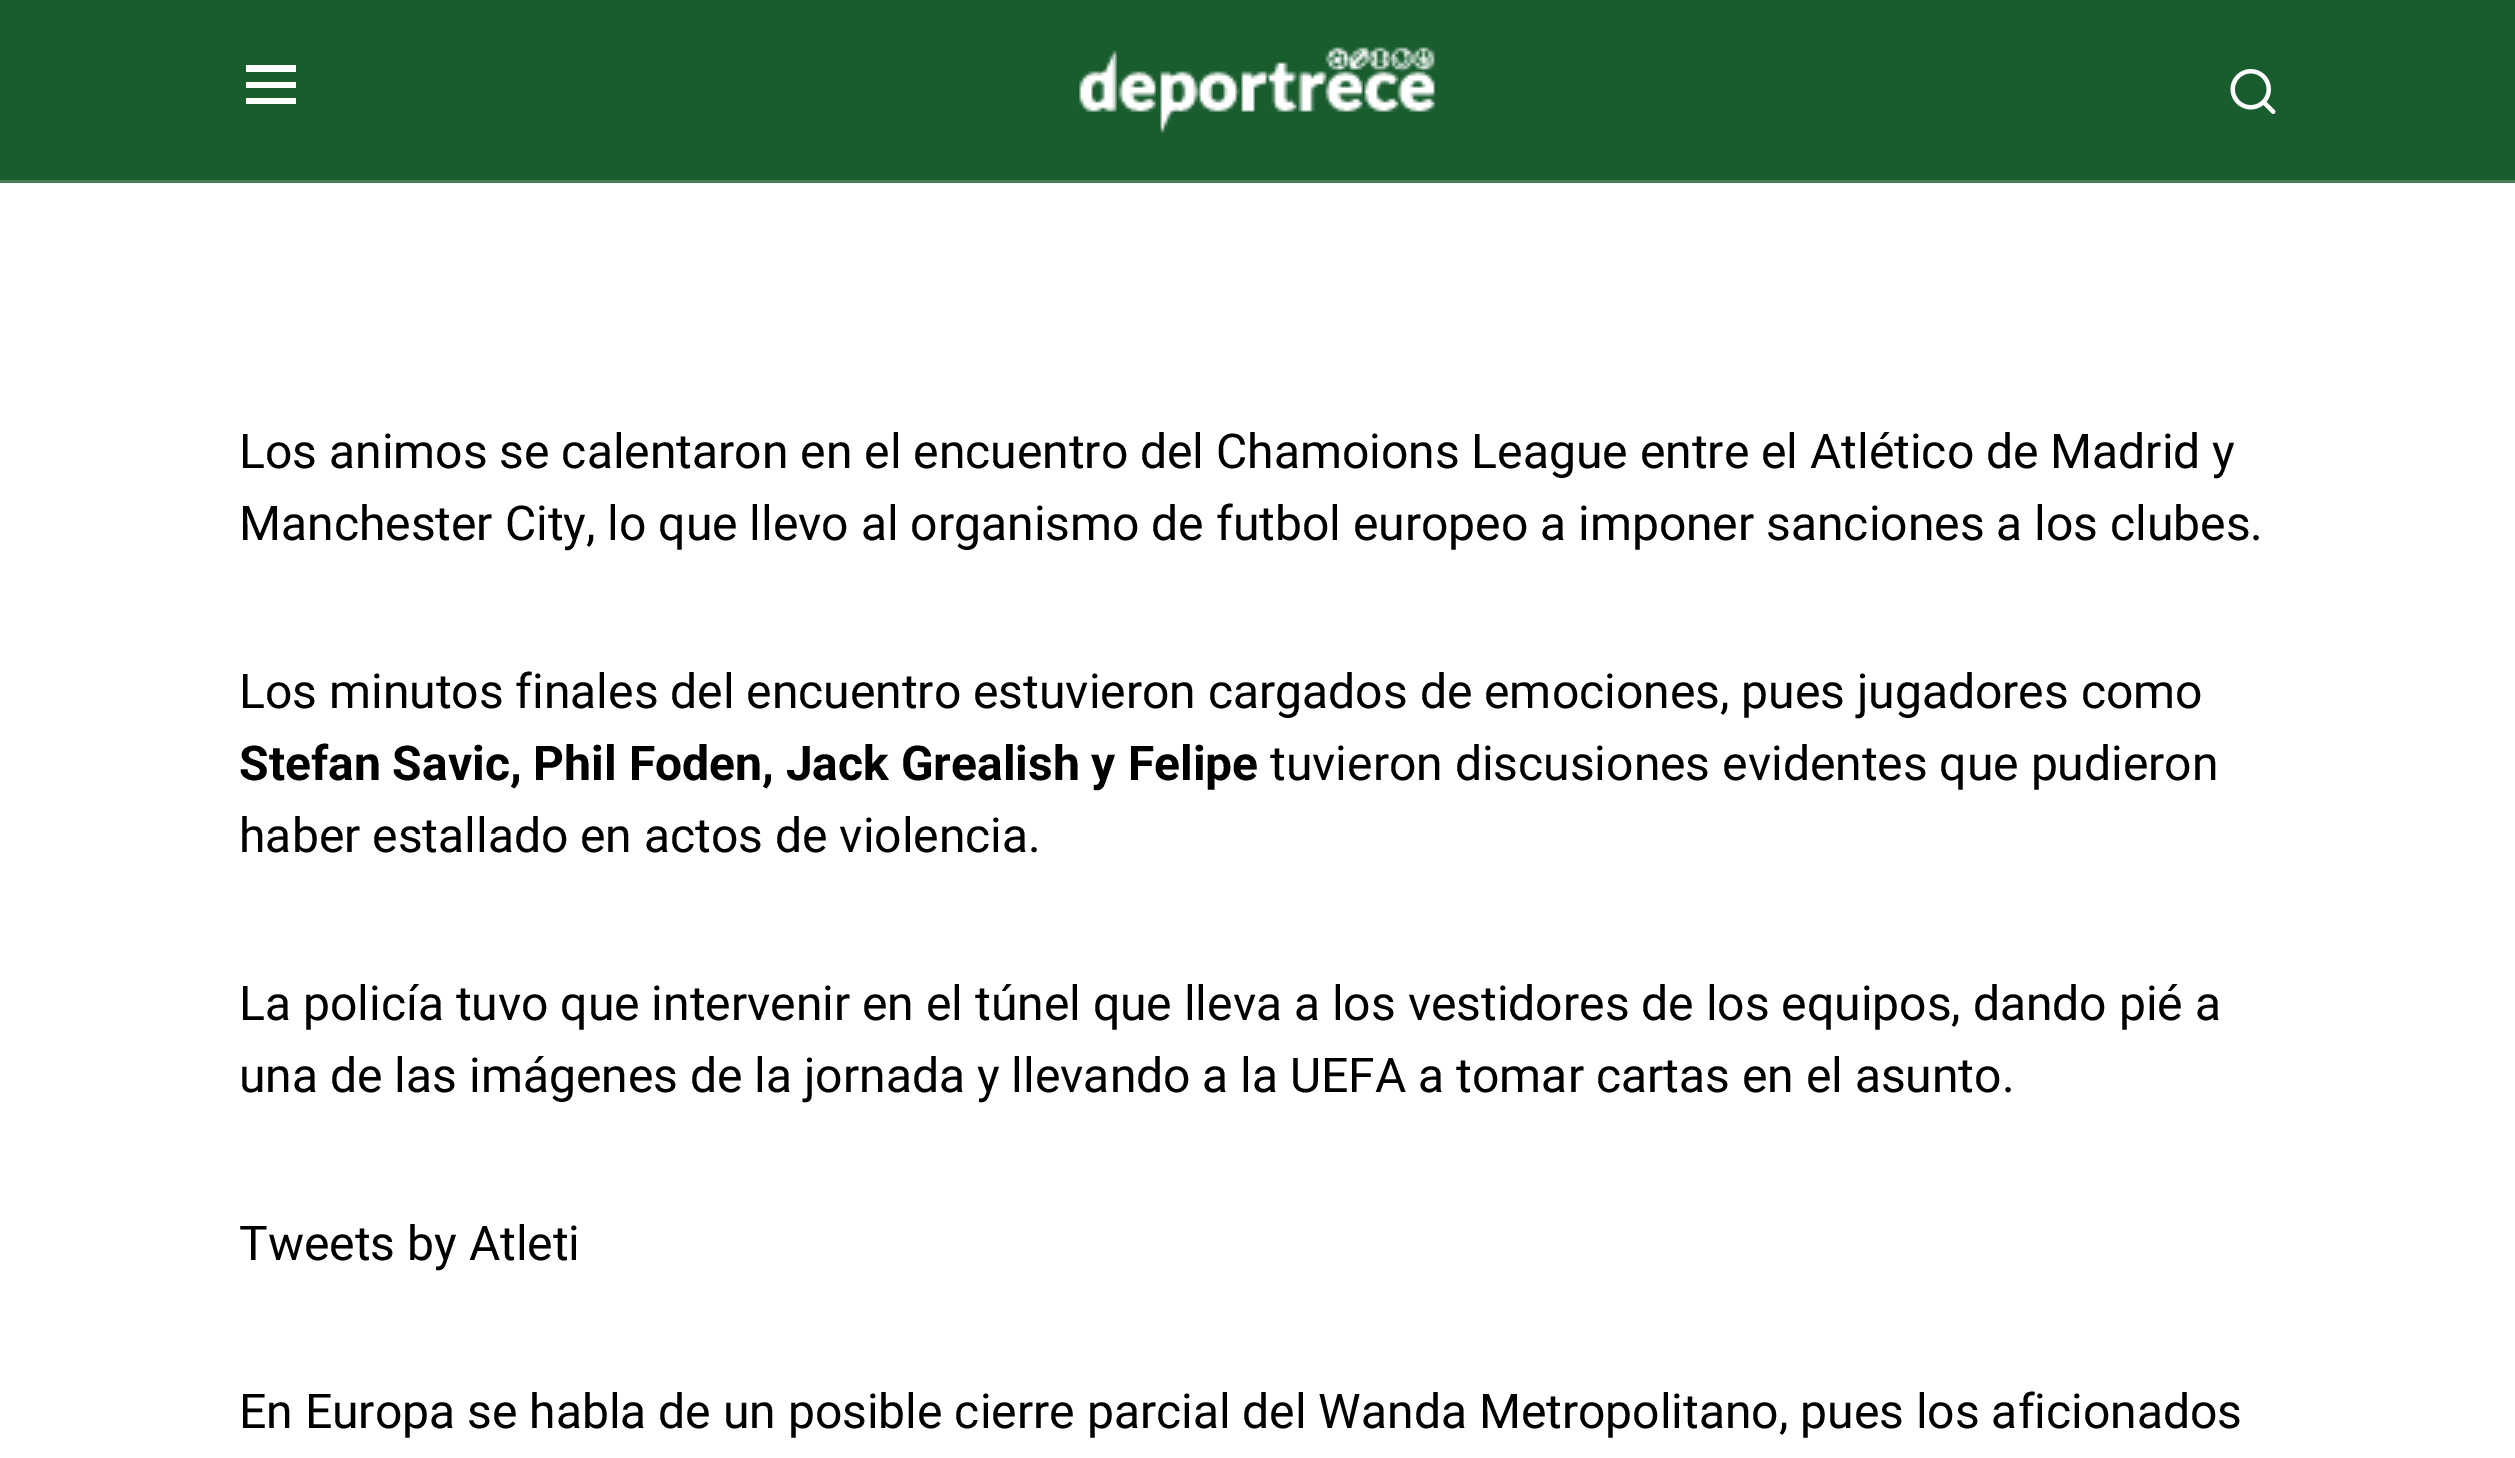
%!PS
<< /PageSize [2515 1458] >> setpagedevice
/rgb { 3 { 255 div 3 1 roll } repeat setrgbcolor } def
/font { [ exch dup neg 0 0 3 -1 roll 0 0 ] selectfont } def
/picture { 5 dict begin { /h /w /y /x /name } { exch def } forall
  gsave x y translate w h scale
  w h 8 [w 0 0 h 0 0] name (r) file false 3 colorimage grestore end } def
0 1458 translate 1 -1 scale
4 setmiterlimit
255 255 255 rgb
0 0 2515 1458 rectfill
25 93 47 rgb
0 0 2515 180 rectfill
71 125 89 rgb
0 180 2515 3 rectfill
255 255 255 rgb
246 65 moveto 296 65 lineto 296 72 lineto 246 72 lineto closepath 246 82 moveto 296 82 lineto 296 88 lineto 246 88 lineto closepath 246 98 moveto 296 98 lineto 296 104 lineto 246 104 lineto closepath fill
(img/1.rgb) 1079 47 356 86 picture
(img/2.rgb) 2230 69 46 45 picture
/Roboto-Regular 48 font
0 0 0 rgb
[
  [(Los animos se calentaron en el encuentro del Chamoions League entre el Atlético de Madrid y) 239 468]
  [(Manchester City, lo que llevo al organismo de futbol europeo a imponer sanciones a los clubes.) 239 540]
  [(Los minutos finales del encuentro estuvieron cargados de emociones, pues jugadores como) 239 708]
] { aload pop moveto show } forall
/Roboto-Bold 48 font
239 780 moveto (Stefan Savic, Phil Foden, Jack Grealish y Felipe) show
/Roboto-Regular 48 font
[
  [(tuvieron discusiones evidentes que pudieron) 1270 780]
  [(haber estallado en actos de violencia.) 239 852]
  [(La policía tuvo que intervenir en el túnel que lleva a los vestidores de los equipos, dando pié a) 239 1020]
  [(una de las imágenes de la jornada y llevando a la UEFA a tomar cartas en el asunto.) 239 1092]
  [(Tweets by Atleti) 239 1260]
  [(En Europa se habla de un posible cierre parcial del Wanda Metropolitano, pues los aficionados) 239 1428]
] { aload pop moveto show } forall
showpage
